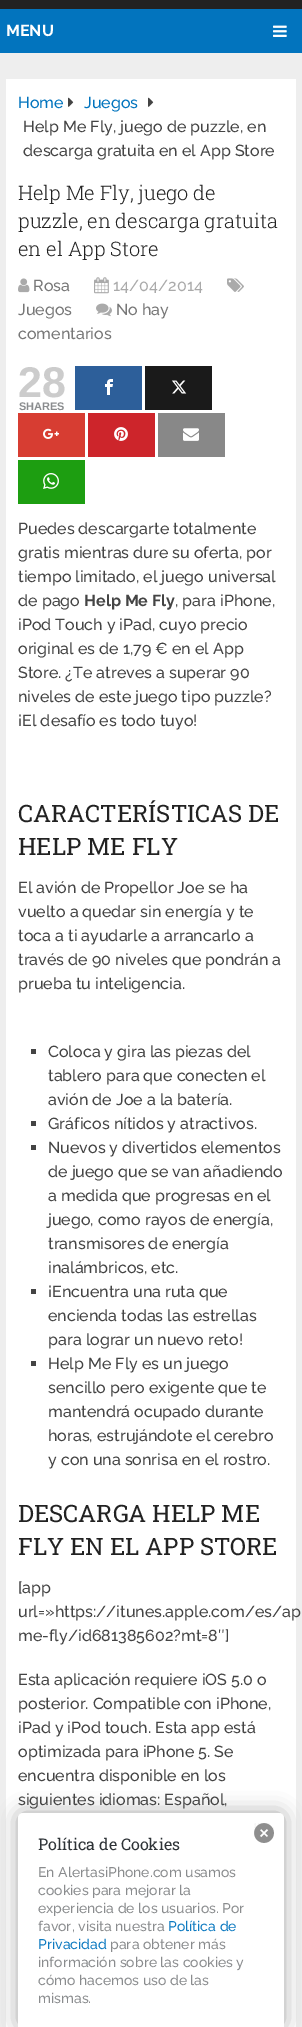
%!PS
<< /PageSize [302 2027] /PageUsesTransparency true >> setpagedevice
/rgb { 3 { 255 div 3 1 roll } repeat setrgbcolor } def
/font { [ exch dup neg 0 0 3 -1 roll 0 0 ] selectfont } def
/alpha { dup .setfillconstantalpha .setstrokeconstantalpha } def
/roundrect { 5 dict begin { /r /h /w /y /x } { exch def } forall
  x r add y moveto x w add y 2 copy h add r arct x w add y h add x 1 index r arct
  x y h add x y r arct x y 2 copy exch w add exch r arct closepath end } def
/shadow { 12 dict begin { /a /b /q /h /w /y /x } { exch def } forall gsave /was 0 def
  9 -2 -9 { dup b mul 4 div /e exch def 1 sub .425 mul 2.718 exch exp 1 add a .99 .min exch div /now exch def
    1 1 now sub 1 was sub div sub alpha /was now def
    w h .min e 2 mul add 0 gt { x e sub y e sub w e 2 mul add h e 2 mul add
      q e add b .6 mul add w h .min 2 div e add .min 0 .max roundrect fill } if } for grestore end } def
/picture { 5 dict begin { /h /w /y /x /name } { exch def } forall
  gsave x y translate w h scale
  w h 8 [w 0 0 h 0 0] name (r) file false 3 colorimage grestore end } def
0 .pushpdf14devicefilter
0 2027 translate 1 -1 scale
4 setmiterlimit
238 238 238 rgb
0 0 302 2027 rectfill
34 34 34 rgb
0 0 302 9 rectfill
2 116 190 rgb
0 9 302 44 rectfill
(img/1.rgb) 273 25 14 12 picture
255 255 255 rgb
6 79 290 1948 rectfill
(img/2.rgb) 68 97 6 10 picture
(img/2.rgb) 148 97 6 10 picture
(img/3.rgb) 18 278 12 15 picture
(img/4.rgb) 94 277 15 17 picture
(img/5.rgb) 227 278 17 14 picture
(img/6.rgb) 96 303 16 14 picture
45 95 154 rgb
75 366 67 44 rectfill
(img/7.rgb) 105 379 8 16 picture
26 26 26 rgb
145 366 67 44 rectfill
(img/8.rgb) 172 380 15 14 picture
215 61 50 rgb
18 413 67 44 rectfill
(img/9.rgb) 43 428 16 11 picture
205 37 43 rgb
88 413 67 44 rectfill
(img/10.rgb) 114 427 14 14 picture
136 136 136 rgb
158 413 67 44 rectfill
(img/11.rgb) 183 428 16 13 picture
29 158 17 rgb
18 460 67 44 rectfill
(img/12.rgb) 43 473 16 16 picture
[
  [31 1049 5 5 68 68 68]
  [31 1121 5 5 68 68 68]
  [31 1145 5 5 68 68 68]
  [31 1289 5 5 68 68 68]
  [31 1361 5 5 68 68 68]
] { aload pop rgb rectfill } forall
gsave
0 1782 moveto 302 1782 lineto 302 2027 lineto 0 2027 lineto closepath 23 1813 moveto 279 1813 lineto 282 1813 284 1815 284 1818 curveto 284 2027 lineto 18 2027 lineto 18 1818 lineto 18 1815 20 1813 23 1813 curveto closepath eoclip newpath
161 161 161 rgb
18 1813 266 214 5 10 0.95 shadow
grestore
0.95 alpha
255 255 255 rgb
23 1813 moveto 279 1813 lineto 282 1813 284 1815 284 1818 curveto 284 2027 lineto 18 2027 lineto 18 1818 lineto 18 1815 20 1813 23 1813 curveto closepath fill
1 alpha
(img/13.rgb) 254 1823 20 20 picture
/Raleway-Bold 16 font
6 36 moveto (MENU) show
/Raleway-Medium 16 font
2 116 190 rgb
18 108 moveto (Home) show
84 108 moveto (Juegos) show
68 68 68 rgb
23 132 moveto (Help Me Fly, juego de puzzle, en) show
23 156 moveto (descarga gratuita en el App Store) show
/RobotoSlab-Light 20 font
34 34 34 rgb
[
  [(Help Me Fly, juego de) 18 200]
  [(puzzle, en descarga gratuita) 18 228]
  [(en el App Store) 18 256]
] { aload pop moveto show } forall
/Raleway-Medium 16 font
119 119 119 rgb
33 291 moveto (Rosa) show
170 170 170 rgb
113 291 moveto (14/04/2014) show
119 119 119 rgb
[
  [(Juegos) 18 315]
  [(No hay) 116 315]
  [(comentarios) 18 339]
] { aload pop moveto show } forall
/LiberationSans-Bold 43 font
204 204 204 rgb
18 397 moveto (28) show
/LiberationSans-Bold 11 font
138 140 142 rgb
19 410 moveto (SHARES) show
/Raleway-Medium 16 font
68 68 68 rgb
[
  [(Puedes descargarte totalmente) 18 534]
  [(gratis mientras dure su oferta, por) 18 558]
  [(tiempo limitado, el juego universal) 18 582]
  [(de pago) 18 606]
] { aload pop moveto show } forall
/Raleway-Bold 16 font
84 606 moveto (Help Me Fly) show
/Raleway-Medium 16 font
[
  [(, para iPhone,) 175 606]
  [(iPod Touch y iPad, cuyo precio) 18 630]
  [(original es de 1,79 € en el App) 18 654]
  [(Store. ¿Te atreves a superar 90) 18 678]
  [(niveles de este juego tipo puzzle?) 18 702]
  [(¡El desafío es todo tuyo!) 18 726]
] { aload pop moveto show } forall
/RobotoSlab-Regular 24 font
34 34 34 rgb
18 822 moveto (CARACTERÍSTICAS DE) show
18 855 moveto (HELP ME FLY) show
/Raleway-Medium 16 font
68 68 68 rgb
[
  [(El avión de Propellor Joe se ha) 18 893]
  [(vuelto a quedar sin energía y te) 18 917]
  [(toca a ti ayudarle a arrancarlo a) 18 941]
  [(través de 90 niveles que pondrán a) 18 965]
  [(prueba tu inteligencia.) 18 989]
  [(Coloca y gira las piezas del) 48 1057]
  [(tablero para que conecten el) 48 1081]
  [(avión de Joe a la batería.) 48 1105]
  [(Gráficos nítidos y atractivos.) 48 1129]
  [(Nuevos y divertidos elementos) 48 1153]
  [(de juego que se van añadiendo) 48 1177]
  [(a medida que progresas en el) 48 1201]
  [(juego, como rayos de energía,) 48 1225]
  [(transmisores de energía) 48 1249]
  [(inalámbricos, etc.) 48 1273]
  [(¡Encuentra una ruta que) 48 1297]
  [(encienda todas las estrellas) 48 1321]
  [(para lograr un nuevo reto!) 48 1345]
  [(Help Me Fly es un juego) 48 1369]
  [(sencillo pero exigente que te) 48 1393]
  [(mantendrá ocupado durante) 48 1417]
  [(horas, estrujándote el cerebro) 48 1441]
  [(y con una sonrisa en el rostro.) 48 1465]
] { aload pop moveto show } forall
/RobotoSlab-Regular 24 font
34 34 34 rgb
18 1522 moveto (DESCARGA HELP ME) show
18 1555 moveto (FLY EN EL APP STORE) show
/Raleway-Medium 16 font
68 68 68 rgb
[
  [([app) 18 1593]
  [(url=»https://itunes.apple.com/es/ap) 18 1617]
  [(me-fly/id681385602?mt=8″]) 18 1641]
  [(Esta aplicación requiere iOS 5.0 o) 18 1685]
  [(posterior. Compatible con iPhone,) 18 1709]
  [(iPad y iPod touch. Esta app está) 18 1733]
  [(optimizada para iPhone 5. Se) 18 1757]
  [(encuentra disponible en los) 18 1781]
  [(siguientes idiomas: Español,) 18 1805]
] { aload pop moveto show } forall
/RobotoSlab-Regular 16 font
46 51 55 rgb
38 1850 moveto (Política de Cookies) show
/Raleway-Medium 14 font
138 140 142 rgb
[
  [(En AlertasiPhone.com usamos) 38 1877]
  [(cookies para mejorar la) 38 1895]
  [(experiencia de los usuarios. Por) 38 1913]
  [(favor, visita nuestra) 38 1931]
] { aload pop moveto show } forall
15 123 193 rgb
168 1931 moveto (Política de) show
38 1949 moveto (Privacidad) show
138 140 142 rgb
[
  [(para obtener más) 110 1949]
  [(información sobre las cookies y) 38 1967]
  [(cómo hacemos uso de las) 38 1985]
  [(mismas.) 38 2003]
] { aload pop moveto show } forall
.poppdf14devicefilter showpage
